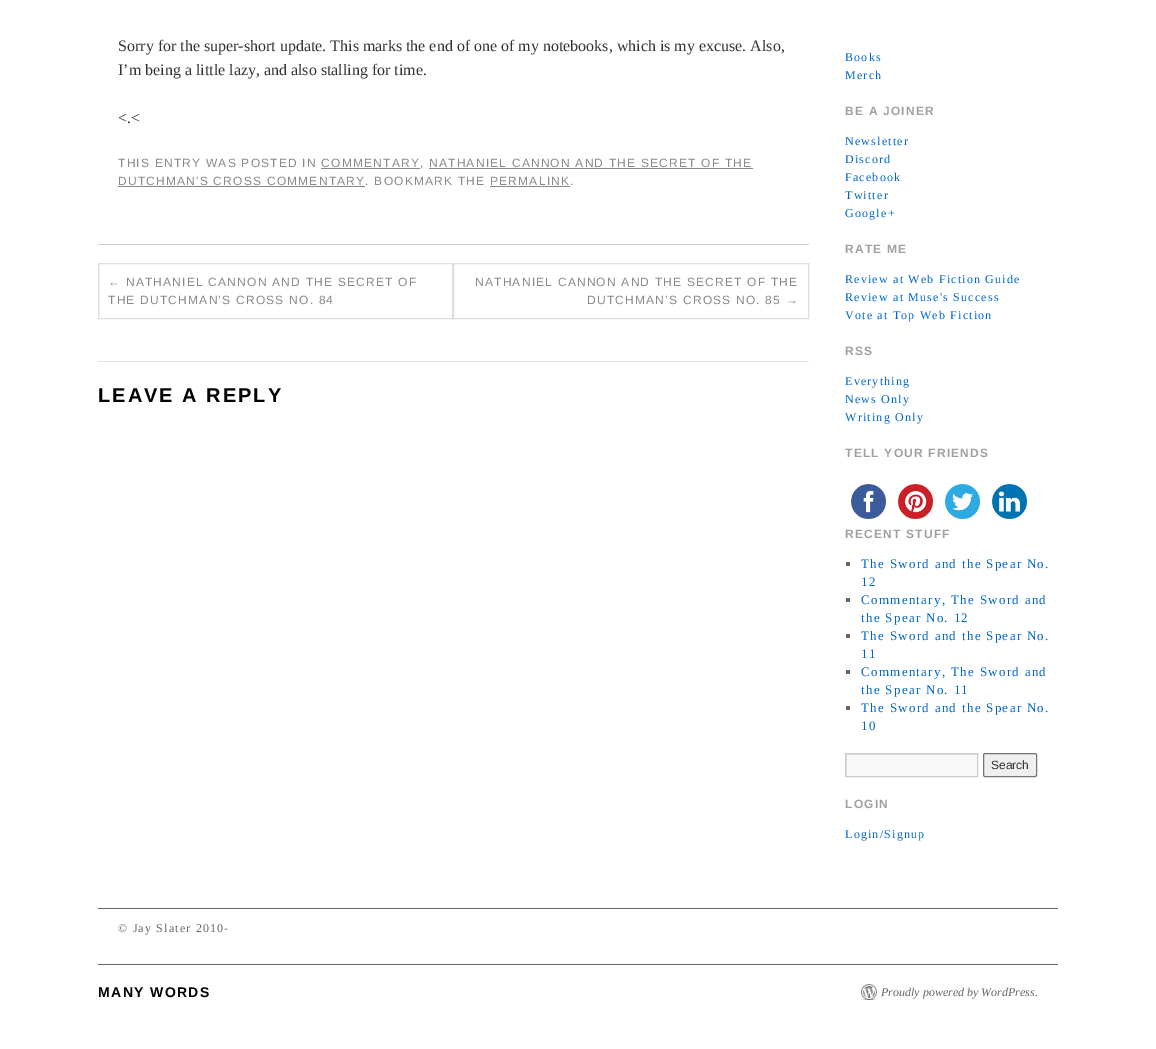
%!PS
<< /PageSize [1156 1049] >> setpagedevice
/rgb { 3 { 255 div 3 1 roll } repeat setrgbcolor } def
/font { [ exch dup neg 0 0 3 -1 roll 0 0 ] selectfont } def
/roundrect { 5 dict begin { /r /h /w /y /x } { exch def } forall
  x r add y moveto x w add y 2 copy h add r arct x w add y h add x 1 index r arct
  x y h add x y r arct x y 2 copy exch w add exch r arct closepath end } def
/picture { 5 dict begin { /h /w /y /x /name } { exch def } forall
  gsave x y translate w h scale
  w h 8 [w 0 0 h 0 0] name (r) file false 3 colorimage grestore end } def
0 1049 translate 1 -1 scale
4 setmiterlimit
255 255 255 rgb
0 0 1156 1049 rectfill
[
  [321 168 99 1 136 136 136]
  [429 168 324 1 136 136 136]
  [118 186 247 1 136 136 136]
  [490 186 80 1 136 136 136]
  [98 244 711 1 204 204 204]
] { aload pop rgb rectfill } forall
221 221 221 rgb
98.5 263.5 354 55 rectstroke
453.5 263.5 355 55 rectstroke
231 231 231 rgb
98 361 711 1 rectfill
(img/1.rgb) 851 484 35 35 picture
(img/2.rgb) 898 484 35 35 picture
(img/3.rgb) 945 484 35 35 picture
(img/4.rgb) 992 484 35 35 picture
[
  [846 562 4 4 102 102 102]
  [846 598 4 4 102 102 102]
  [846 634 4 4 102 102 102]
  [846 670 4 4 102 102 102]
  [846 706 4 4 102 102 102]
  [847 755 130 21 249 249 249]
] { aload pop rgb rectfill } forall
gsave
846 754 131 22 rectclip
224 224 224 rgb
747 655 moveto 1076 655 lineto 1076 875 lineto 747 875 lineto closepath 847 755 moveto 978 755 lineto 978 777 lineto 847 777 lineto closepath eofill
grestore
204 204 204 rgb
845.5 753.5 132 23 rectstroke
239 239 239 rgb
983.5 753.5 53 23 1.5 roundrect gsave fill grestore
118 118 118 rgb
stroke
102 102 102 rgb
98 908 960 1 rectfill
98 964 960 1 rectfill
(img/5.rgb) 861 984 16 16 picture
/LiberationSerif-Regular 16 font
51 51 51 rgb
[
  [(Sorry for the super-short update. This marks the end of one of my notebooks, which is my excuse. Also,) 118 51]
  [(I’m being a little lazy, and also stalling for time.) 118 75]
  [(<.<) 118 123]
] { aload pop moveto show } forall
/LiberationSans-Regular 12 font
136 136 136 rgb
118 167 moveto 1.2 0 (THIS ENTRY WAS POSTED IN COMMENTARY, NATHANIEL CANNON AND THE SECRET OF THE) ashow
118 185 moveto 1.2 0 (DUTCHMAN'S CROSS COMMENTARY. BOOKMARK THE PERMALINK.) ashow
108 286 moveto 1.2 0 (← NATHANIEL CANNON AND THE SECRET OF) ashow
108 304 moveto 1.2 0 (THE DUTCHMAN’S CROSS NO. 84) ashow
475 286 moveto 1.2 0 (NATHANIEL CANNON AND THE SECRET OF THE) ashow
587 304 moveto 1.2 0 (DUTCHMAN’S CROSS NO. 85 →) ashow
/LiberationSans-Bold 20 font
0 0 0 rgb
98 402 moveto 2 0 (LEAVE A REPLY) ashow
/LiberationSerif-Regular 12 font
0 102 204 rgb
845 61 moveto 1.2 0 (Books) ashow
845 79 moveto 1.2 0 (Merch) ashow
/LiberationSans-Bold 12 font
160 160 160 rgb
845 115 moveto 1.2 0 (BE A JOINER) ashow
/LiberationSerif-Regular 12 font
0 102 204 rgb
845 145 moveto 1.2 0 (Newsletter) ashow
845 163 moveto 1.2 0 (Discord) ashow
845 181 moveto 1.2 0 (Facebook) ashow
845 199 moveto 1.2 0 (Twitter) ashow
845 217 moveto 1.2 0 (Google+) ashow
/LiberationSans-Bold 12 font
160 160 160 rgb
845 253 moveto 1.2 0 (RATE ME) ashow
/LiberationSerif-Regular 12 font
0 102 204 rgb
845 283 moveto 1.2 0 (Review at Web Fiction Guide) ashow
845 301 moveto 1.2 0 (Review at Muse's Success) ashow
845 319 moveto 1.2 0 (Vote at Top Web Fiction) ashow
/LiberationSans-Bold 12 font
160 160 160 rgb
845 355 moveto 1.2 0 (RSS) ashow
/LiberationSerif-Regular 12 font
0 102 204 rgb
845 385 moveto 1.2 0 (Everything) ashow
845 403 moveto 1.2 0 (News Only) ashow
845 421 moveto 1.2 0 (Writing Only) ashow
/LiberationSans-Bold 12 font
160 160 160 rgb
845 457 moveto 1.2 0 (TELL YOUR FRIENDS) ashow
845 538 moveto 1.2 0 (RECENT STUFF) ashow
/LiberationSerif-Regular 13 font
0 102 204 rgb
861 568 moveto 1.3 0 (The Sword and the Spear No.) ashow
861 586 moveto 1.3 0 (12) ashow
861 604 moveto 1.3 0 (Commentary, The Sword and) ashow
861 622 moveto 1.3 0 (the Spear No. 12) ashow
861 640 moveto 1.3 0 (The Sword and the Spear No.) ashow
861 658 moveto 1.3 0 (11) ashow
861 676 moveto 1.3 0 (Commentary, The Sword and) ashow
861 694 moveto 1.3 0 (the Spear No. 11) ashow
861 712 moveto 1.3 0 (The Sword and the Spear No.) ashow
861 730 moveto 1.3 0 (10) ashow
/LiberationSans-Regular 12 font
51 51 51 rgb
991 769 moveto (Search) show
/LiberationSans-Bold 12 font
160 160 160 rgb
845 808 moveto 1.2 0 (LOGIN) ashow
/LiberationSerif-Regular 12 font
0 102 204 rgb
845 838 moveto 1.2 0 (Login/Signup) ashow
102 102 102 rgb
118 932 moveto 1.2 0 (© Jay Slater 2010-) ashow
/LiberationSans-Bold 14 font
0 0 0 rgb
98 997 moveto 1.4 0 (MANY WORDS) ashow
/LiberationSerif-Italic 12 font
102 102 102 rgb
881 996 moveto (Proudly powered by WordPress.) show
showpage
